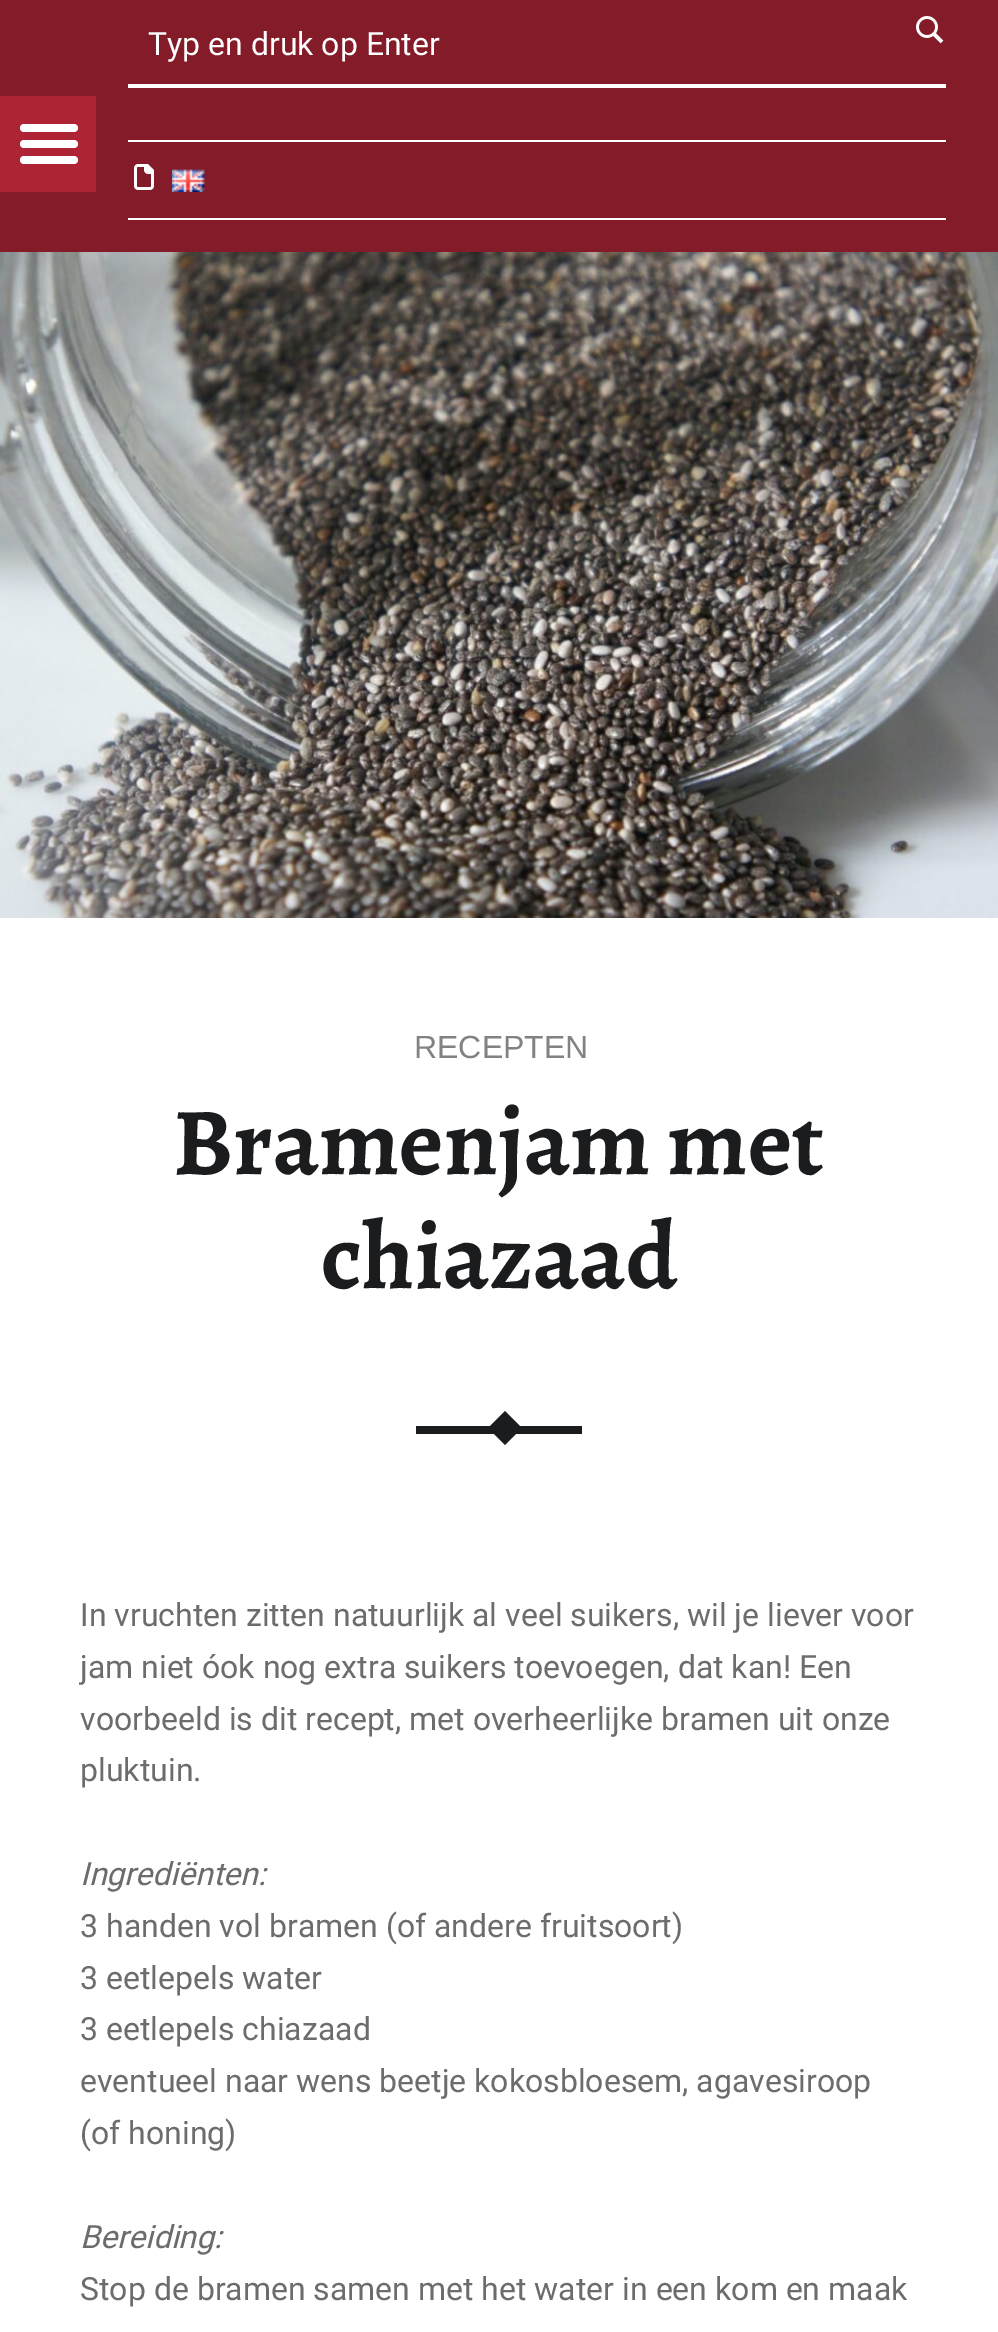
%!PS
<< /PageSize [998 2332] >> setpagedevice
/rgb { 3 { 255 div 3 1 roll } repeat setrgbcolor } def
/font { [ exch dup neg 0 0 3 -1 roll 0 0 ] selectfont } def
/roundrect { 5 dict begin { /r /h /w /y /x } { exch def } forall
  x r add y moveto x w add y 2 copy h add r arct x w add y h add x 1 index r arct
  x y h add x y r arct x y 2 copy exch w add exch r arct closepath end } def
/picture { 5 dict begin { /h /w /y /x /name } { exch def } forall
  gsave x y translate w h scale
  w h 8 [w 0 0 h 0 0] name (r) file false 3 colorimage grestore end } def
0 2332 translate 1 -1 scale
4 setmiterlimit
255 255 255 rgb
0 0 998 2332 rectfill
131 27 40 rgb
0 0 998 252 rectfill
255 255 255 rgb
128 84 818 4 rectfill
(img/1.rgb) 916 16 28 28 picture
128 140 818 2 rectfill
128 218 818 2 rectfill
(img/2.rgb) 134 164 20 26 picture
(img/3.rgb) 172 169 33 23 picture
174 36 53 rgb
0 96 96 96 rectfill
255 255 255 rgb
20 124 58 8 4 roundrect fill
20 140 58 8 4 roundrect fill
20 156 58 8 4 roundrect fill
(img/4.rgb) 0 252 998 666 picture
26 28 30 rgb
416 1426 166 8 rectfill
505 1411 moveto 522 1428 lineto 505 1445 lineto 488 1428 lineto closepath fill
/Roboto-Regular 32 font
255 255 255 rgb
148 55 moveto (Typ en druk op Enter) show
/LiberationSans-Regular 32 font
128 130 132 rgb
414 1058 moveto (RECEPTEN) show
/Alegreya-Bold 96 font
26 28 30 rgb
173 1174 moveto (Bramenjam met) show
321 1288 moveto (chiazaad) show
/Roboto-Regular 32 font
106 108 110 rgb
[
  [(In vruchten zitten natuurlijk al veel suikers, wil je liever voor) 80 1626]
  [(jam niet óok nog extra suikers toevoegen, dat kan! Een) 80 1678]
  [(voorbeeld is dit recept, met overheerlijke bramen uit onze) 80 1730]
  [(pluktuin.) 80 1781]
] { aload pop moveto show } forall
/Roboto-Italic 32 font
80 1885 moveto (Ingrediënten:) show
/Roboto-Regular 32 font
[
  [(3 handen vol bramen \(of andere fruitsoort\)) 80 1937]
  [(3 eetlepels water) 80 1989]
  [(3 eetlepels chiazaad) 80 2040]
  [(eventueel naar wens beetje kokosbloesem, agavesiroop) 80 2092]
  [(\(of honing\)) 80 2144]
] { aload pop moveto show } forall
/Roboto-Italic 32 font
80 2248 moveto (Bereiding:) show
/Roboto-Regular 32 font
80 2300 moveto (Stop de bramen samen met het water in een kom en maak) show
showpage
